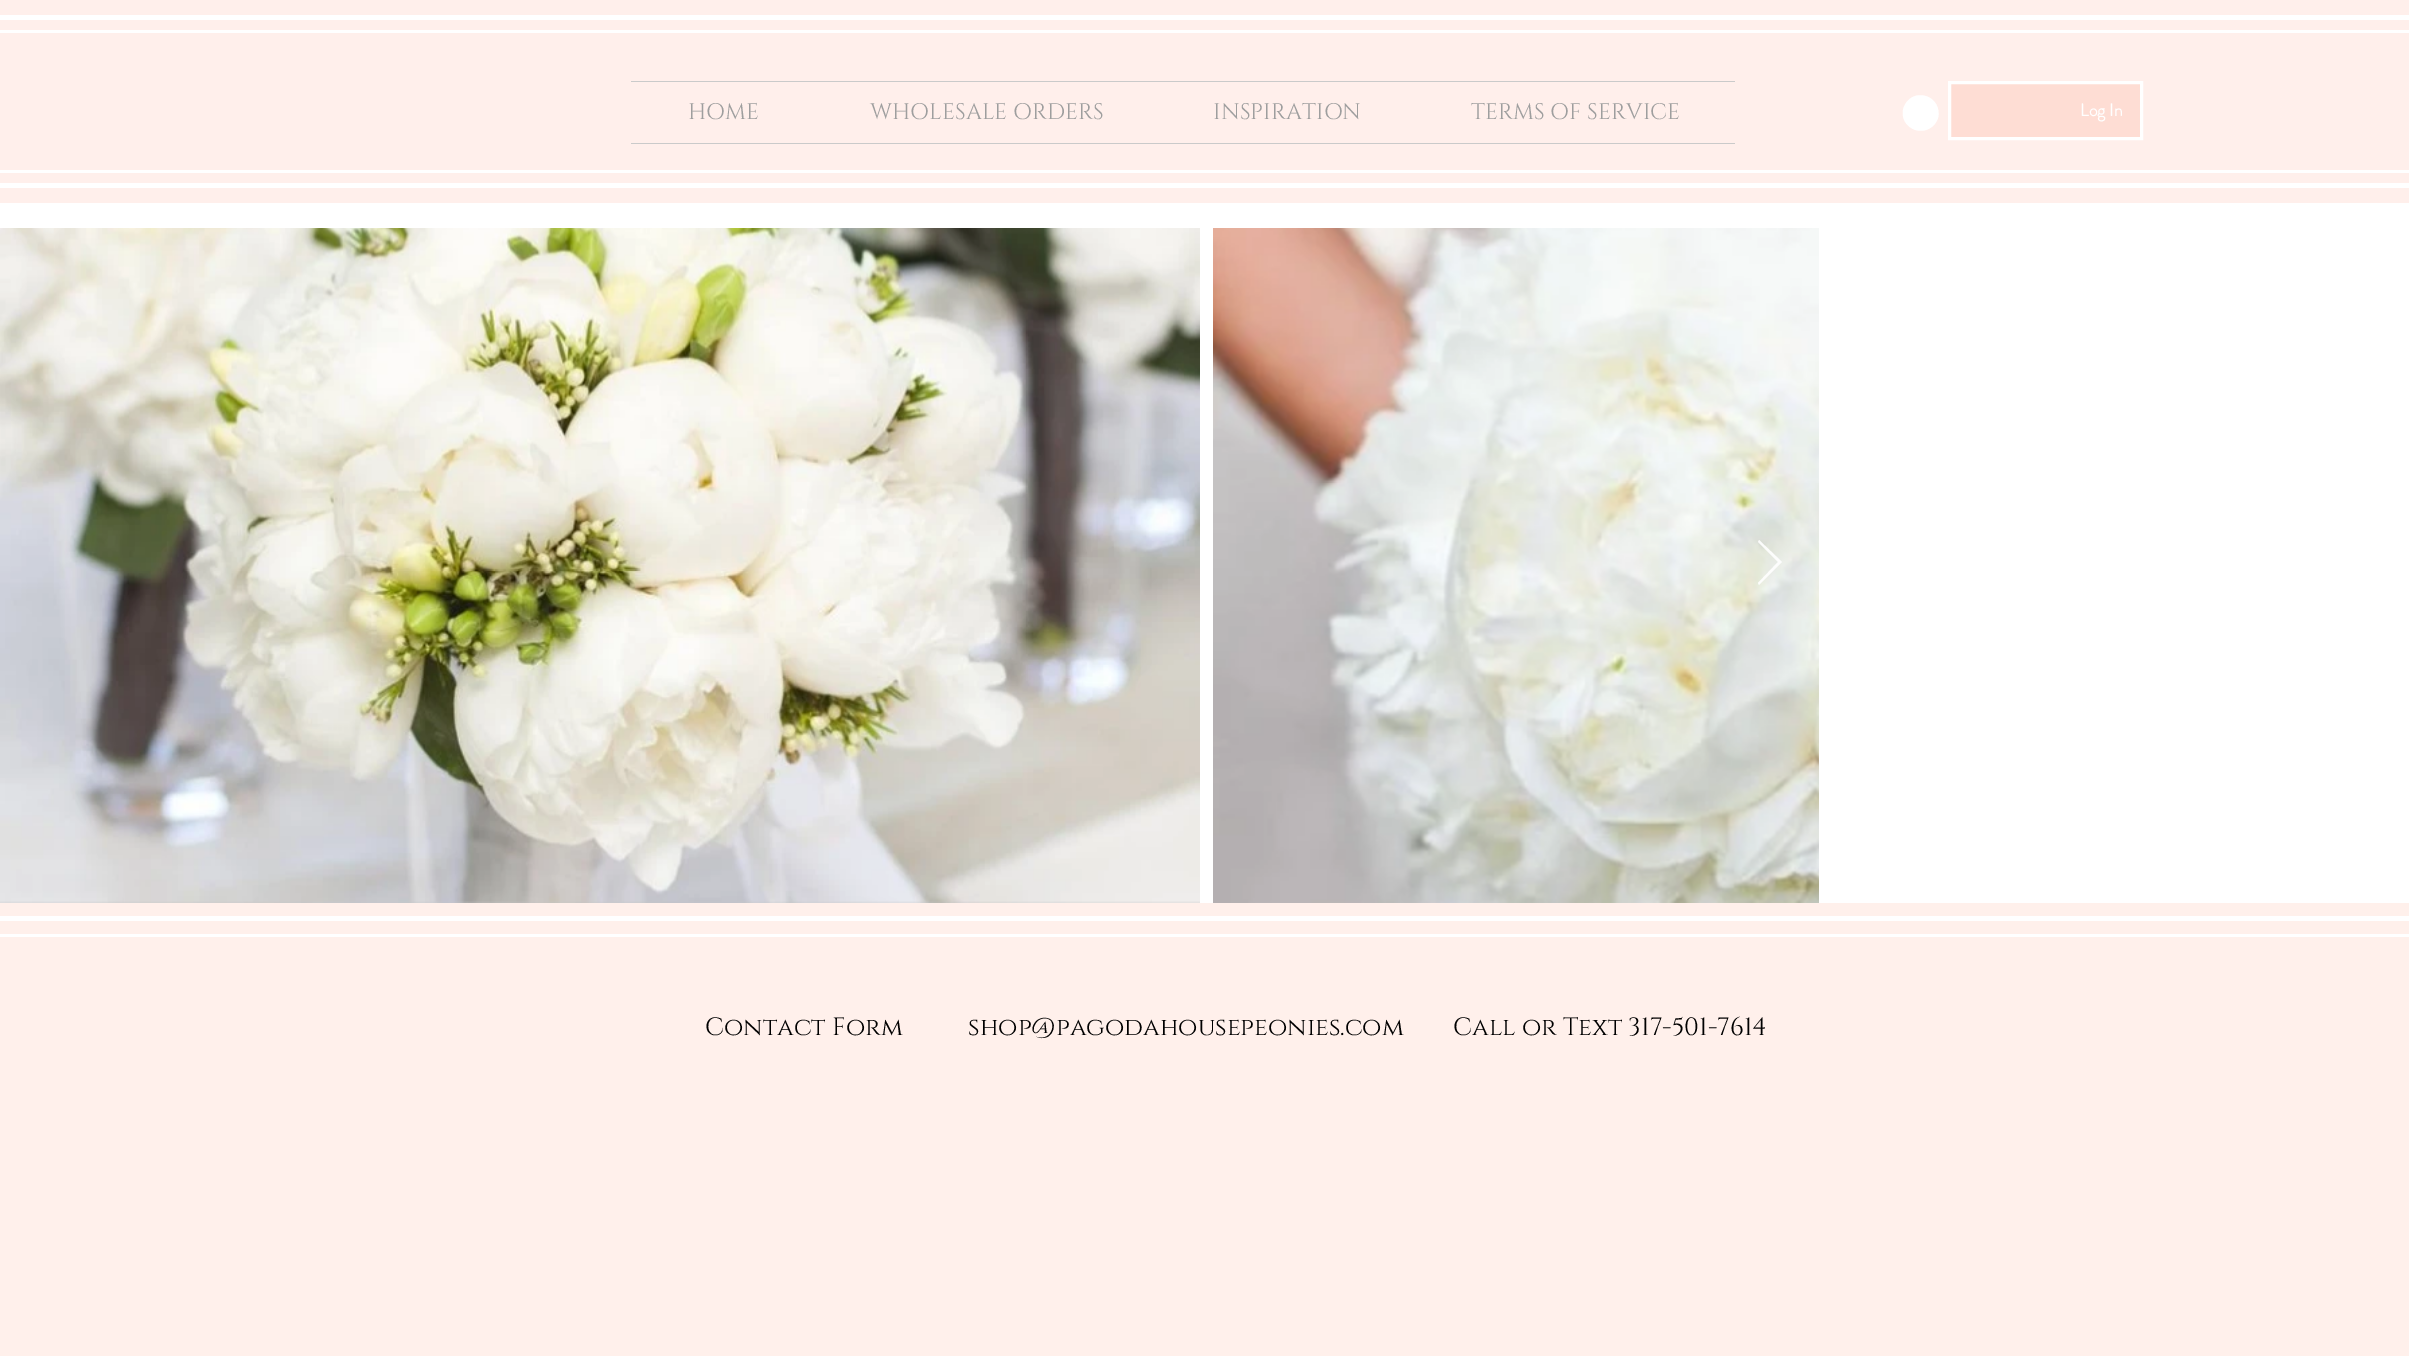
%!PS
<< /PageSize [2409 1356] /PageUsesTransparency true >> setpagedevice
/rgb { 3 { 255 div 3 1 roll } repeat setrgbcolor } def
/font { [ exch dup neg 0 0 3 -1 roll 0 0 ] selectfont } def
/alpha { dup .setfillconstantalpha .setstrokeconstantalpha } def
/picture { 5 dict begin { /h /w /y /x /name } { exch def } forall
  gsave x y translate w h scale
  w h 8 [w 0 0 h 0 0] name (r) file false 3 colorimage grestore end } def
0 .pushpdf14devicefilter
0 1356 translate 1 -1 scale
4 setmiterlimit
255 255 255 rgb
0 0 2409 1356 rectfill
[
  [0 0 2409 203 255 239 235]
  [0 15 2409 5 255 255 255]
  [0 183 2409 5 255 255 255]
  [0 30 2409 3 255 255 255]
  [0 170 2409 3 255 255 255]
  [631 81 1104 1 202 202 202]
  [631 143 1104 1 202 202 202]
] { aload pop rgb rectfill } forall
255 255 255 rgb
1925.5 96 moveto 1935 98.5 1940.5 108.5 1938 118 curveto 1935 127.5 1925 133 1915.5 130 curveto 1906 127 1900.5 117.5 1903.5 108 curveto 1906.5 98.5 1916 93 1925.5 96 curveto closepath fill
254 221 212 rgb
1949.5 82.5 moveto 2141.5 82.5 lineto 2141.5 138.5 lineto 1949.5 138.5 lineto closepath gsave fill grestore
255 255 255 rgb
3 setlinewidth
stroke
(img/1.rgb) 0 228 1200 675 picture
(img/2.rgb) 1213 228 606 675 picture
0.9 alpha
1758 542 moveto 1759 540 lineto 1782 562 lineto 1759 585 lineto 1758 583 lineto 1778 562 lineto closepath fill
1 alpha
[
  [0 903 2409 453 255 240 235]
  [0 916 2409 5 255 255 255]
  [0 934 2409 3 255 255 255]
] { aload pop rgb rectfill } forall
/Cinzel-Regular 22.5 font
158 158 158 rgb
[
  [(HOME) 688 119]
  [(WHOLESALE ORDERS) 870 119]
  [(INSPIRATION) 1213 119]
  [(TERMS OF SERVICE) 1471 119]
] { aload pop moveto show } forall
/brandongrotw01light-Bold 17.5 font
255 255 255 rgb
2080 116 moveto (Log In) show
/Cinzel-Regular 25 font
0 0 0 rgb
[
  [(Contact Form) 705 1035]
  [(shop@pagodahousepeonies.com) 968 1035]
  [(Call or Text 317-501-7614) 1453 1035]
] { aload pop moveto show } forall
.poppdf14devicefilter showpage
